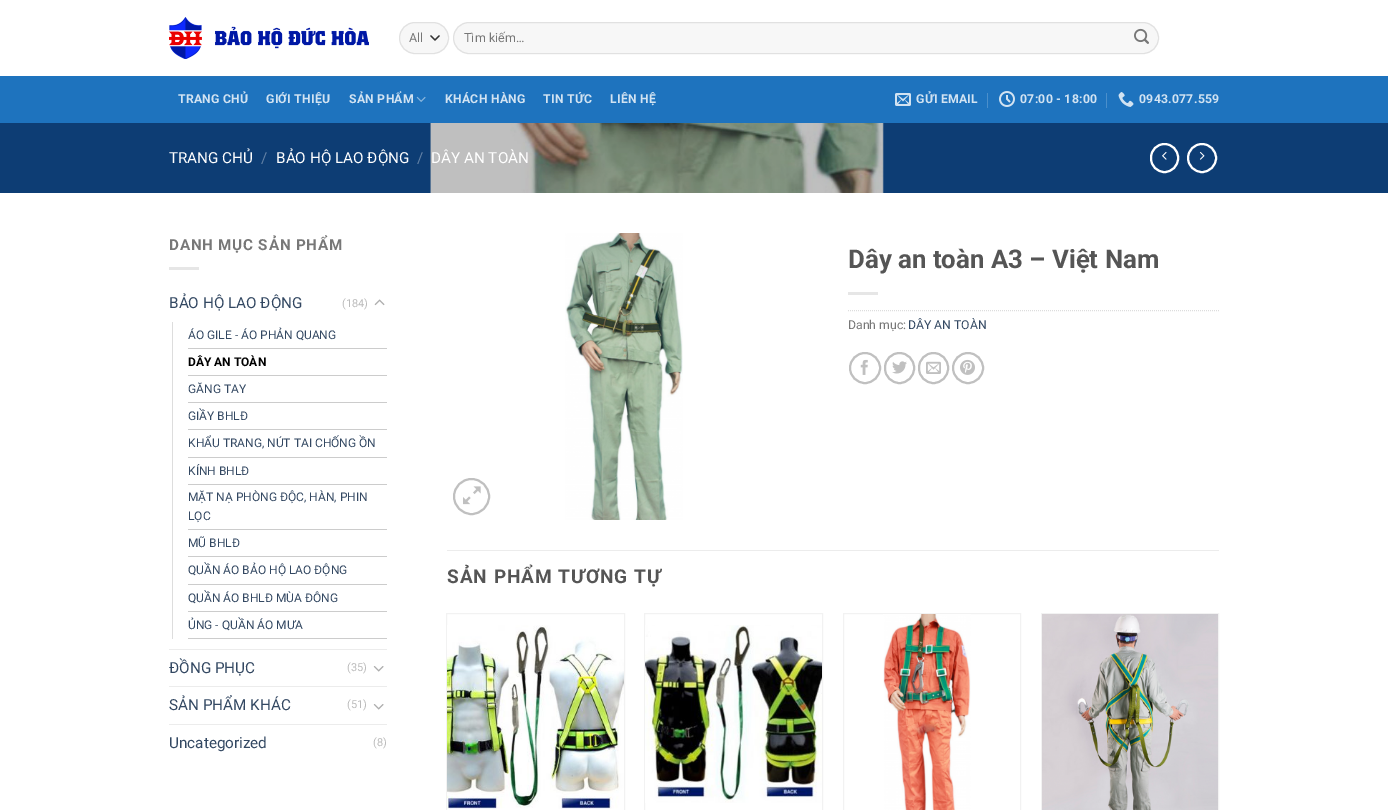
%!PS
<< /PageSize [1388 810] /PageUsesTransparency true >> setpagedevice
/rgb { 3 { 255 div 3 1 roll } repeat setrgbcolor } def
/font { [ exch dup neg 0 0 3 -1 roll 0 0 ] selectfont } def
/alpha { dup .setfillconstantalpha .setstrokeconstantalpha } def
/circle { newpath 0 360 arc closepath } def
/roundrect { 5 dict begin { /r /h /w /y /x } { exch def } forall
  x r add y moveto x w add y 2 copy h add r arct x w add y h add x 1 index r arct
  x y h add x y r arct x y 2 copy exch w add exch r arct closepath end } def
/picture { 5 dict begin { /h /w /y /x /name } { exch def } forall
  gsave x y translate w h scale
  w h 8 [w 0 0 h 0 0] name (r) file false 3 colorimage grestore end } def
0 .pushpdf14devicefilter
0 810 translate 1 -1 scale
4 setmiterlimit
255 255 255 rgb
0 0 1388 810 rectfill
(img/1.rgb) 169 17 200 42 picture
247 247 247 rgb
399 22 50 32 16 roundrect fill
51 51 51 rgb
1.3 setlinewidth
1 setlinecap
1 setlinejoin
431 36 moveto 435 40 lineto 439 36 lineto stroke
0.09 alpha
0 0 0 rgb
1 setlinewidth
0 setlinecap
0 setlinejoin
399.5 22.5 49 31 15.5 roundrect stroke
1 alpha
247 247 247 rgb
453 22 706 32 16 roundrect fill
0.09 alpha
0 0 0 rgb
453.5 22.5 705 31 15.5 roundrect stroke
1 alpha
(img/2.rgb) 1134 28 15 16 picture
30 115 190 rgb
0 76 1388 47 rectfill
39 115 183 rgb
169 76 1050 1 rectfill
(img/3.rgb) 416 96 10 6 picture
(img/4.rgb) 895 93 16 13 picture
75 143 203 rgb
987 93 1 15 rectfill
(img/5.rgb) 999 91 16 16 picture
1106 93 1 15 rectfill
(img/6.rgb) 1118 92 16 15 picture
13 61 116 rgb
0 123 1388 70 rectfill
255 255 255 rgb
2 setlinewidth
1151 144 27 28 13.5 roundrect stroke
(img/7.rgb) 1162 151 5 9 picture
1202 158 14 circle stroke
(img/8.rgb) 1199 151 6 9 picture
(img/9.rgb) 430 123 454 70 picture
230 230 230 rgb
169 267 30 3 rectfill
(img/10.rgb) 374 299 11 7 picture
[
  [172 322 1 317 221 221 221]
  [188 348 199 1 204 204 204]
  [188 375 199 1 204 204 204]
  [188 402 199 1 204 204 204]
  [188 429 199 1 204 204 204]
  [188 457 199 1 204 204 204]
  [188 484 199 1 204 204 204]
  [188 529 199 1 204 204 204]
  [188 556 199 1 204 204 204]
  [188 584 199 1 204 204 204]
  [188 611 199 1 204 204 204]
  [188 638 199 1 204 204 204]
  [169 649 218 1 236 236 236]
] { aload pop rgb rectfill } forall
(img/11.rgb) 373 666 11 6 picture
169 686 218 1 rectfill
(img/11.rgb) 373 704 11 6 picture
169 724 218 1 rectfill
192 192 192 rgb
471.5 496.5 17.5 circle stroke
(img/12.rgb) 463 486 18 19 picture
(img/13.rgb) 565 233 118 287 picture
230 230 230 rgb
848 292 30 3 rectfill
221 221 221 rgb
1 setlinewidth
[1 1] 0 setdash
848 310.5 moveto 1219 310.5 lineto stroke
192 192 192 rgb
2 setlinewidth
[] 0 setdash
865 368 15 circle stroke
(img/14.rgb) 860 359 8 16 picture
885 353 29 30 14.5 roundrect stroke
(img/15.rgb) 892 361 15 13 picture
919 353 29 30 14.5 roundrect stroke
(img/16.rgb) 926 361 15 13 picture
968 368 15 circle stroke
(img/17.rgb) 960 359 15 16 picture
236 236 236 rgb
447 550 772 1 rectfill
242 242 242 rgb
1 setlinewidth
446.5 613.5 178 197 rectstroke
(img/18.rgb) 447 625 177 184 picture
644.5 613.5 178 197 rectstroke
(img/19.rgb) 645 625 177 178 picture
843.5 613.5 177 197 rectstroke
(img/20.rgb) 883 614 88 196 picture
1041.5 613.5 177 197 rectstroke
(img/21.rgb) 1042 614 176 196 picture
/Roboto-Regular 12.5 font
119 119 119 rgb
409 42 moveto (All) show
464 42 moveto (Tìm kiếm…) show
/Roboto-Bold 12.25 font
210 227 242 rgb
178 103 moveto 0.25 0 (TRANG CHỦ) ashow
266 103 moveto 0.25 0 (GIỚI THIỆU) ashow
349 103 moveto 0.25 0 (SẢN PHẨM) ashow
445 103 moveto 0.25 0 (KHÁCH HÀNG) ashow
543 103 moveto 0.25 0 (TIN TỨC) ashow
610 103 moveto 0.25 0 (LIÊN HỆ) ashow
916 103 moveto 0.25 0 (GỬI EMAIL) ashow
1020 103 moveto 0.25 0 (07:00 - 18:00) ashow
1139 103 moveto 0.25 0 (0943.077.559) ashow
/Roboto-Regular 15.25 font
255 255 255 rgb
169 163 moveto (TRANG CHỦ) show
98 129 165 rgb
261 163 moveto (/) show
255 255 255 rgb
276 163 moveto (BẢO HỘ LAO ĐỘNG) show
98 129 165 rgb
417 163 moveto (/) show
255 255 255 rgb
431 163 moveto (DÂY AN TOÀN) show
/Roboto-Bold 15.25 font
119 119 119 rgb
169 250 moveto 0.75 0 (DANH MỤC SẢN PHẨM) ashow
/Roboto-Regular 15.25 font
51 72 98 rgb
169 308 moveto (BẢO HỘ LAO ĐỘNG) show
/Roboto-Regular 11 font
187 187 187 rgb
342 307 moveto (\(184\)) show
/Roboto-Regular 12 font
51 72 98 rgb
188 339 moveto (ÁO GILE - ÁO PHẢN QUANG) show
/Roboto-Bold 12 font
0 0 0 rgb
188 366 moveto (DÂY AN TOÀN) show
/Roboto-Regular 12 font
51 72 98 rgb
[
  [(GĂNG TAY) 188 393]
  [(GIẦY BHLĐ) 188 420]
  [(KHẨU TRANG, NÚT TAI CHỐNG ỒN) 188 447]
  [(KÍNH BHLĐ) 188 475]
  [(MẶT NẠ PHÒNG ĐỘC, HÀN, PHIN) 188 501]
  [(LỌC) 188 520]
  [(MŨ BHLĐ) 188 547]
  [(QUẦN ÁO BẢO HỘ LAO ĐỘNG) 188 574]
  [(QUẦN ÁO BHLĐ MÙA ĐÔNG) 188 602]
  [(ỦNG - QUẦN ÁO MƯA) 188 629]
] { aload pop moveto show } forall
/Roboto-Regular 15.25 font
169 673 moveto (ĐỒNG PHỤC) show
/Roboto-Regular 11 font
187 187 187 rgb
347 671 moveto (\(35\)) show
/Roboto-Regular 15.25 font
51 72 98 rgb
169 710 moveto (SẢN PHẨM KHÁC) show
/Roboto-Regular 11 font
187 187 187 rgb
347 708 moveto (\(51\)) show
/Roboto-Regular 15.25 font
51 72 98 rgb
169 748 moveto (Uncategorized) show
/Roboto-Regular 11 font
187 187 187 rgb
373 746 moveto (\(8\)) show
/Roboto-Bold 25.8 font
85 85 85 rgb
848 268 moveto (Dây an toàn A3 – Việt Nam) show
/Roboto-Regular 12.25 font
119 119 119 rgb
848 329 moveto (Danh mục:) show
51 72 98 rgb
908 329 moveto (DÂY AN TOÀN) show
/Roboto-Bold 19 font
85 85 85 rgb
447 583 moveto 1 0 (SẢN PHẨM TƯƠNG TỰ) ashow
.poppdf14devicefilter showpage
